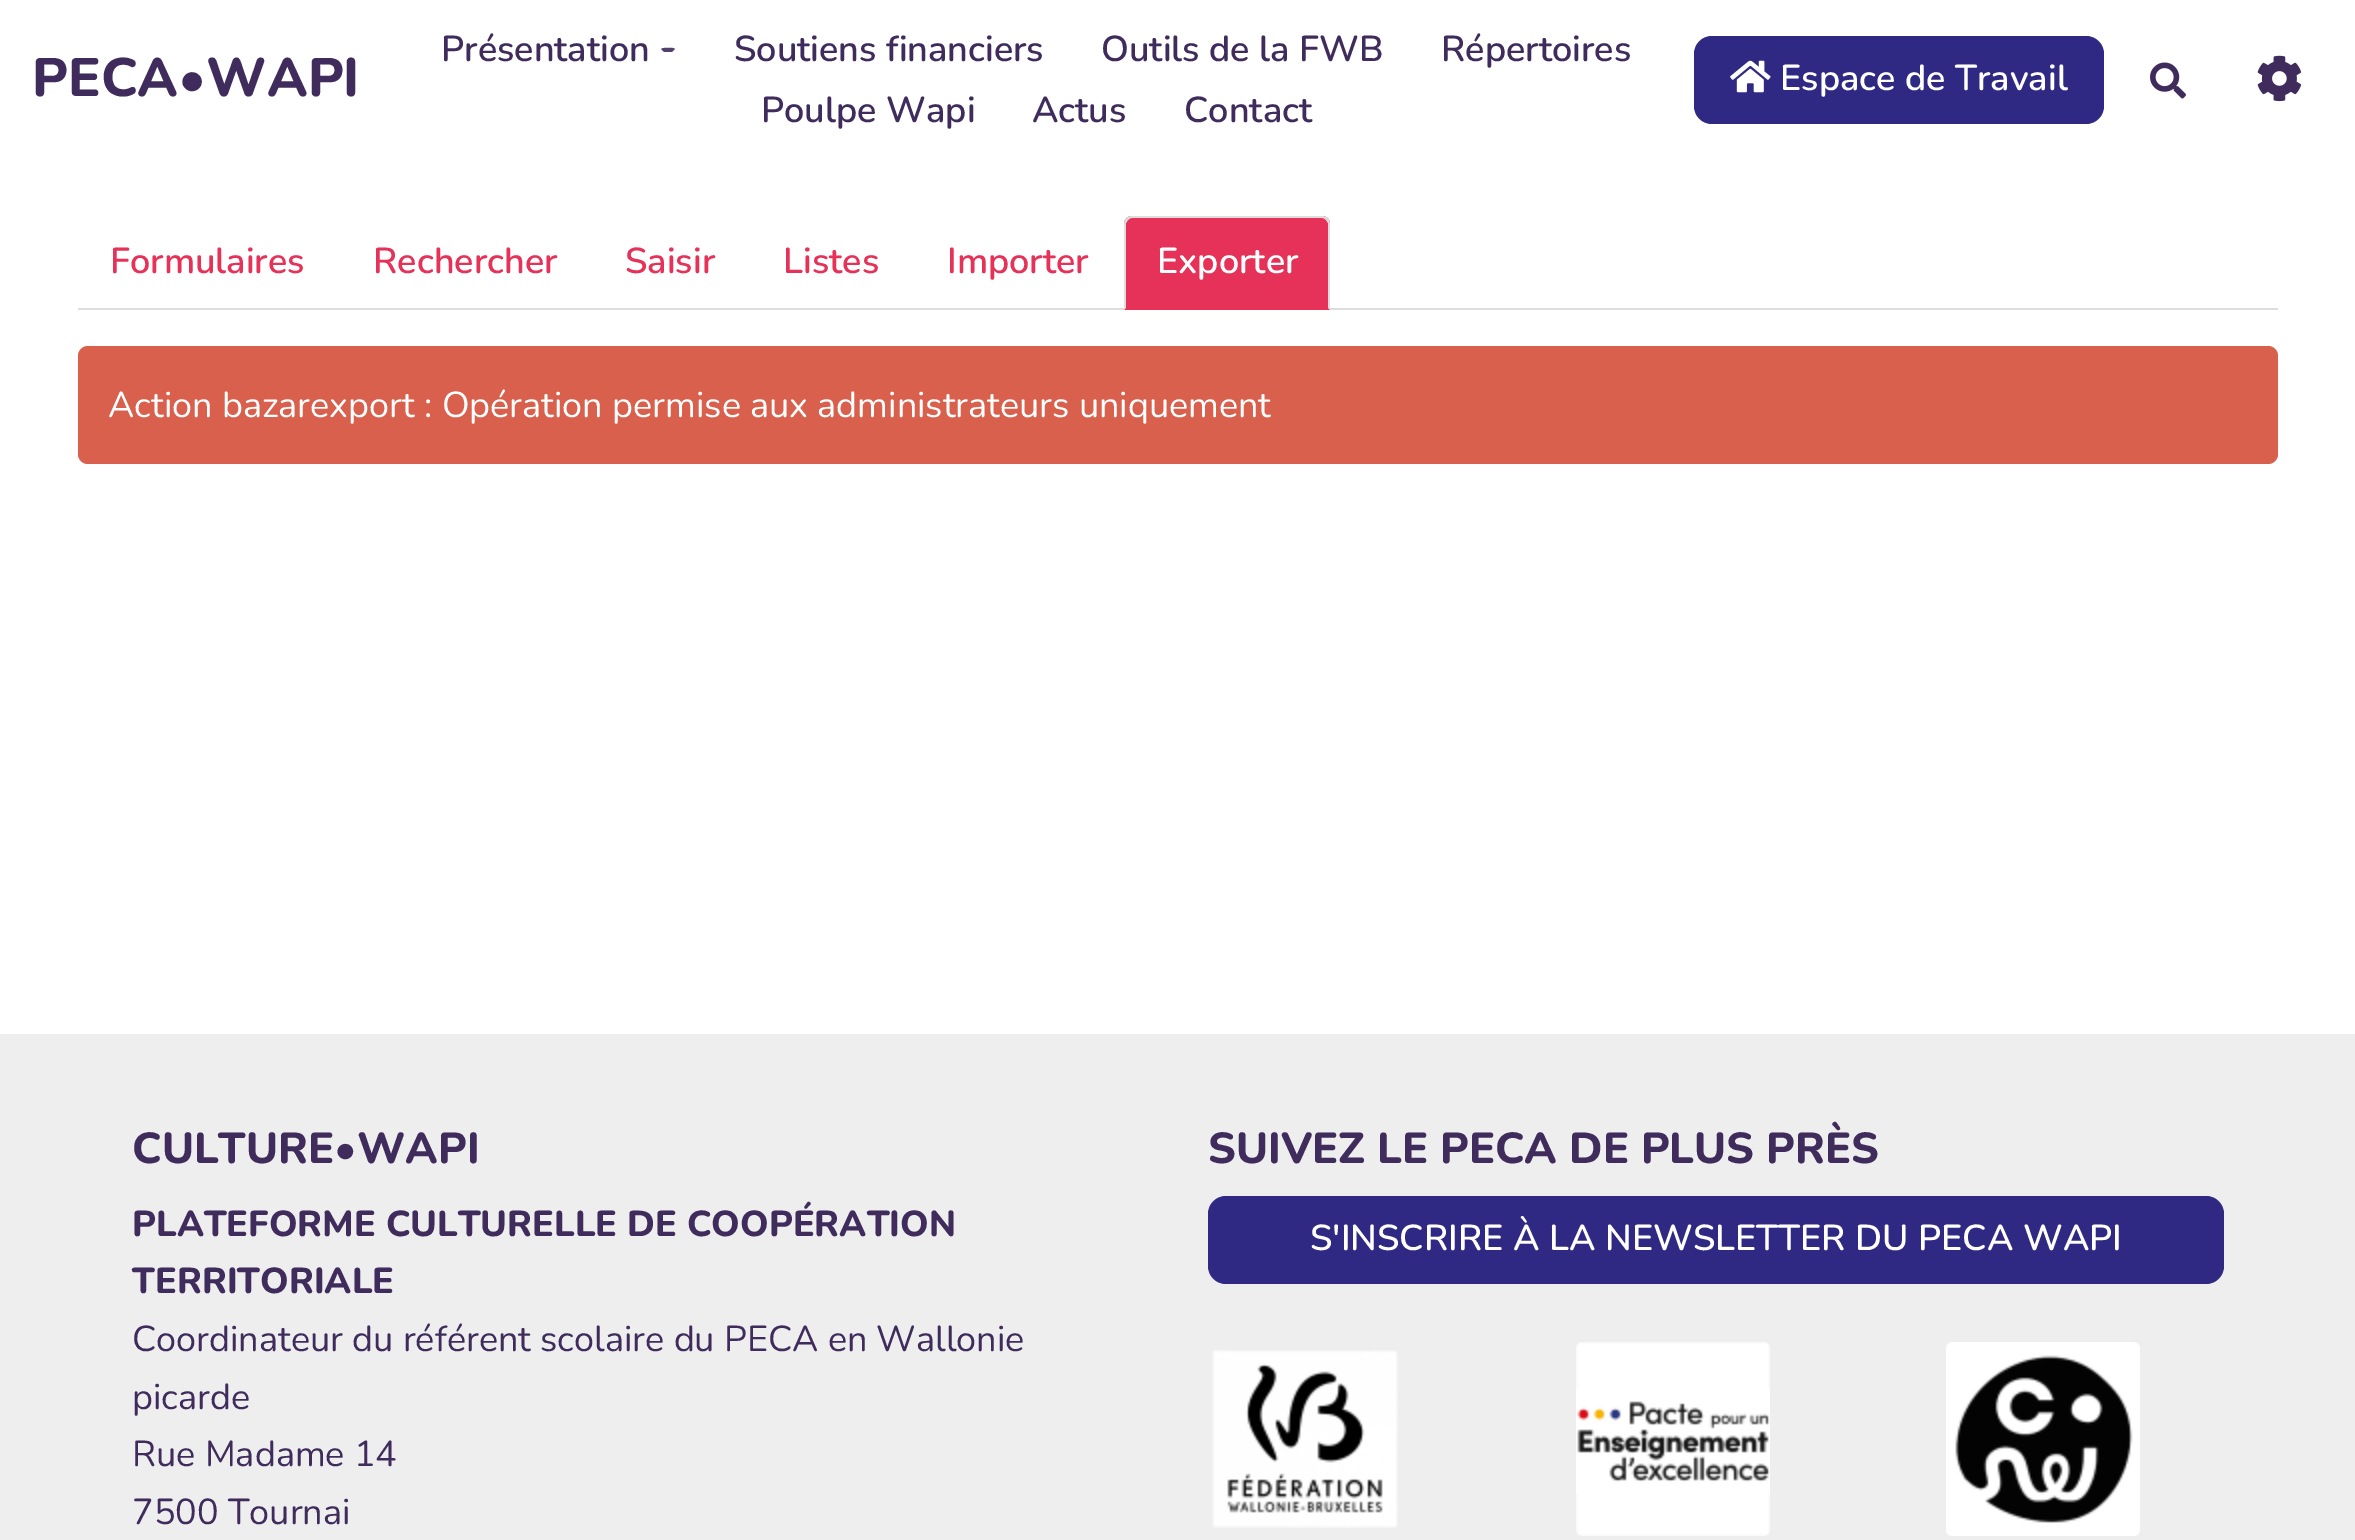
%!PS
<< /PageSize [2355 1540] >> setpagedevice
/rgb { 3 { 255 div 3 1 roll } repeat setrgbcolor } def
/font { [ exch dup neg 0 0 3 -1 roll 0 0 ] selectfont } def
/roundrect { 5 dict begin { /r /h /w /y /x } { exch def } forall
  x r add y moveto x w add y 2 copy h add r arct x w add y h add x 1 index r arct
  x y h add x y r arct x y 2 copy exch w add exch r arct closepath end } def
/picture { 5 dict begin { /h /w /y /x /name } { exch def } forall
  gsave x y translate w h scale
  w h 8 [w 0 0 h 0 0] name (r) file false 3 colorimage grestore end } def
0 1540 translate 1 -1 scale
4 setmiterlimit
255 255 255 rgb
0 0 2355 1540 rectfill
82 65 108 rgb
664 48 moveto 666.5 48 672.5 47 675 49 curveto 672 52 lineto 664 52 lineto 661 49 lineto 662 48.5 663 48 664 48 curveto closepath fill
48 41 131 rgb
1694 36 410 88 18 roundrect fill
(img/1.rgb) 1730 60 41 33 picture
(img/2.rgb) 2150 62 36 37 picture
(img/3.rgb) 2257 55 45 47 picture
221 221 221 rgb
78 308 2200 2 rectfill
230 50 88 rgb
1132 216 moveto 1322 216 lineto 1326.5 216 1330 219.5 1330 224 curveto 1330 310 lineto 1124 310 lineto 1124 224 lineto 1124 219.5 1127.5 216 1132 216 curveto closepath fill
221 221 221 rgb
1132 216 moveto 1130 216 1128 217 1126 218 curveto 1128 220 lineto 1129 219 1130 218 1132 218 curveto 1322 218 lineto 1324 218 1325 219 1326 220 curveto 1328 218 lineto 1326 217 1324 216 1322 216 curveto closepath fill
1330 310 moveto 1330 224 lineto 1330 222 1329 220 1328 218 curveto 1326 220 lineto 1328 223 lineto 1328 308 lineto closepath fill
1124 310 moveto 1126 308 lineto 1126 223 lineto 1128 220 lineto 1126 218 lineto 1125 220 1124 222 1124 224 curveto closepath fill
216 96 76 rgb
78 346 2200 118 10 roundrect fill
238 238 238 rgb
0 1034 2355 506 rectfill
48 41 131 rgb
1208 1196 1016 88 18 roundrect fill
(img/4.rgb) 1212 1350 186 178 picture
(img/5.rgb) 1576 1342 194 194 picture
(img/6.rgb) 1946 1342 194 194 picture
/Nunito-ExtraBold 54 font
63 44 92 rgb
32 96 moveto (PECA•WAPI) show
/Nunito-SemiBold 36 font
[
  [(Présentation) 441 61]
  [(Soutiens financiers) 734 61]
  [(Outils de la FWB) 1101 61]
  [(Répertoires) 1441 61]
  [(Poulpe Wapi) 761 122]
  [(Actus) 1032 122]
  [(Contact) 1184 122]
] { aload pop moveto show } forall
255 255 255 rgb
1780 90 moveto (Espace de Travail) show
230 50 88 rgb
[
  [(Formulaires) 110 273]
  [(Rechercher) 373 273]
  [(Saisir) 625 273]
  [(Listes) 783 273]
  [(Importer) 947 273]
] { aload pop moveto show } forall
255 255 255 rgb
1157 273 moveto (Exporter) show
/Nunito-ExtraLight 36 font
108 417 moveto (Action bazarexport : Opération permise aux administrateurs uniquement) show
/Nunito-ExtraBold 43.25 font
63 44 92 rgb
132 1163 moveto (CULTURE•WAPI) show
/Nunito-ExtraBold 36 font
132 1236 moveto (PLATEFORME CULTURELLE DE COOPÉRATION) show
132 1293 moveto (TERRITORIALE) show
/Nunito-ExtraLight 36 font
[
  [(Coordinateur du référent scolaire du PECA en Wallonie) 132 1351]
  [(picarde) 132 1409]
  [(Rue Madame 14) 132 1466]
  [(7500 Tournai) 132 1524]
] { aload pop moveto show } forall
/Nunito-ExtraBold 43.25 font
1208 1163 moveto (SUIVEZ LE PECA DE PLUS PRÈS) show
/Nunito-SemiBold 36 font
255 255 255 rgb
1310 1250 moveto (S'INSCRIRE À LA NEWSLETTER DU PECA WAPI) show
showpage
